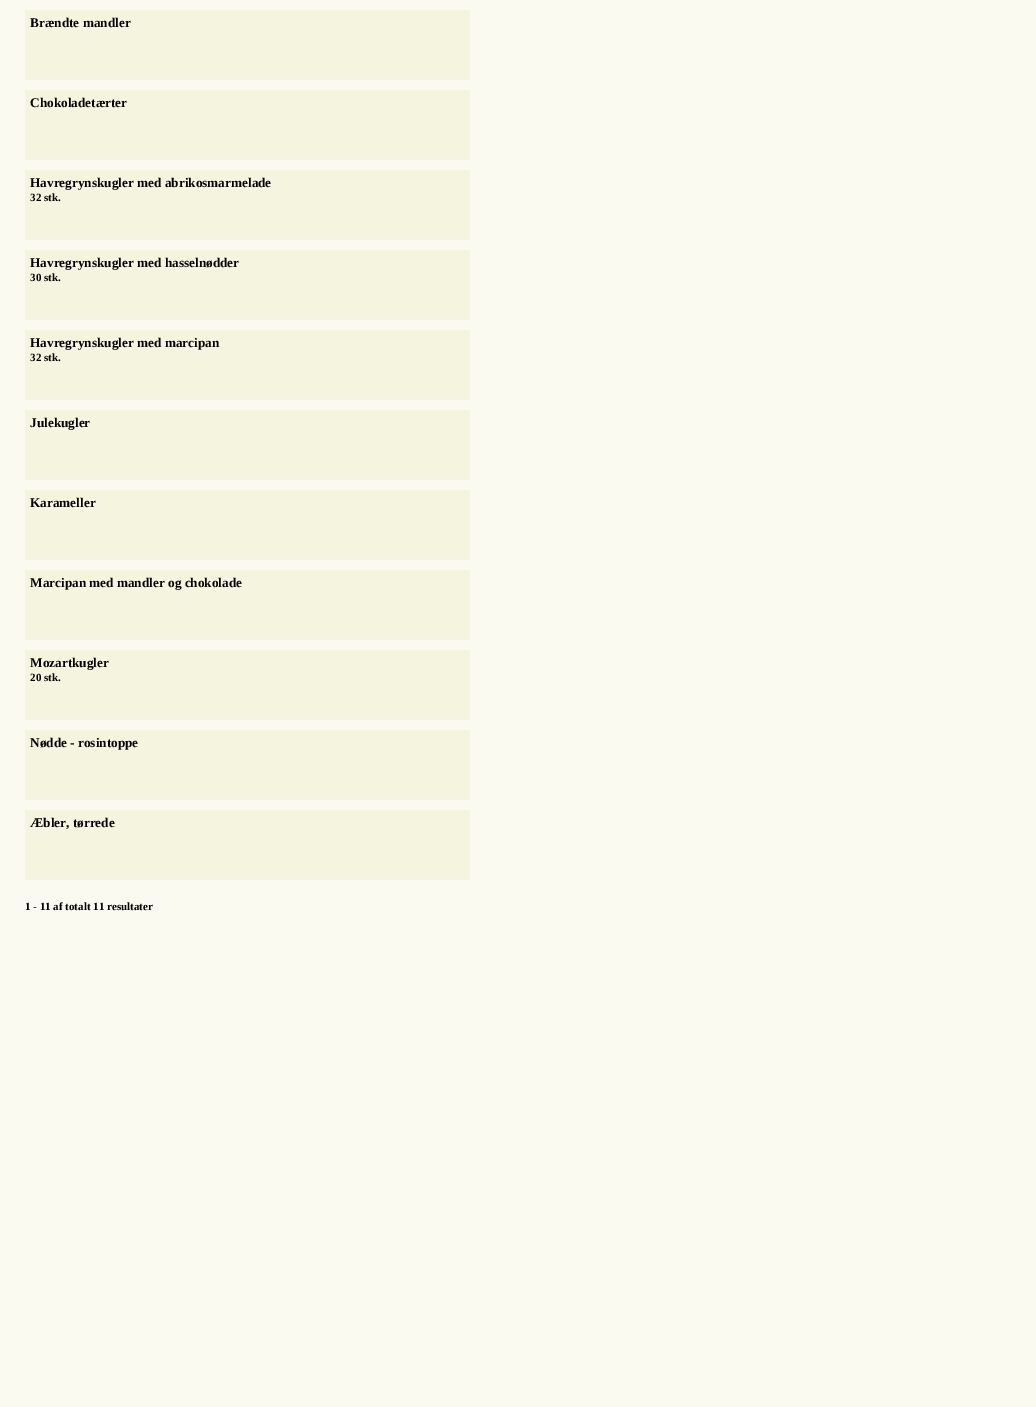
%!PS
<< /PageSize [1036 1407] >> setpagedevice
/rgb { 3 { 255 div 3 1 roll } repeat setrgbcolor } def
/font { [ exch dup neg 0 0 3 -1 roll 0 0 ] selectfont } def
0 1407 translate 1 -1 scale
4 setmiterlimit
250 250 241 rgb
0 0 1036 1407 rectfill
[
  [25 10 445 70 244 244 223]
  [25 90 445 70 244 244 223]
  [25 170 445 70 244 244 223]
  [25 250 445 70 244 244 223]
  [25 330 445 70 244 244 223]
  [25 410 445 70 244 244 223]
  [25 490 445 70 244 244 223]
  [25 570 445 70 244 244 223]
  [25 650 445 70 244 244 223]
  [25 730 445 70 244 244 223]
  [25 810 445 70 244 244 223]
] { aload pop rgb rectfill } forall
/LiberationSerif-Bold 13.25 font
0 0 0 rgb
[
  [(Brændte mandler) 30 27]
  [(Chokoladetærter) 30 107]
  [(Havregrynskugler med abrikosmarmelade) 30 187]
] { aload pop moveto show } forall
/LiberationSerif-Bold 11 font
30 201 moveto (32 stk.) show
/LiberationSerif-Bold 13.25 font
30 267 moveto (Havregrynskugler med hasselnødder) show
/LiberationSerif-Bold 11 font
30 281 moveto (30 stk.) show
/LiberationSerif-Bold 13.25 font
30 347 moveto (Havregrynskugler med marcipan) show
/LiberationSerif-Bold 11 font
30 361 moveto (32 stk.) show
/LiberationSerif-Bold 13.25 font
[
  [(Julekugler) 30 427]
  [(Karameller) 30 507]
  [(Marcipan med mandler og chokolade) 30 587]
  [(Mozartkugler) 30 667]
] { aload pop moveto show } forall
/LiberationSerif-Bold 11 font
30 681 moveto (20 stk.) show
/LiberationSerif-Bold 13.25 font
30 747 moveto (Nødde - rosintoppe) show
30 827 moveto (Æbler, tørrede) show
/LiberationSerif-Bold 11 font
25 910 moveto (1 - 11 af totalt 11 resultater) show
showpage
